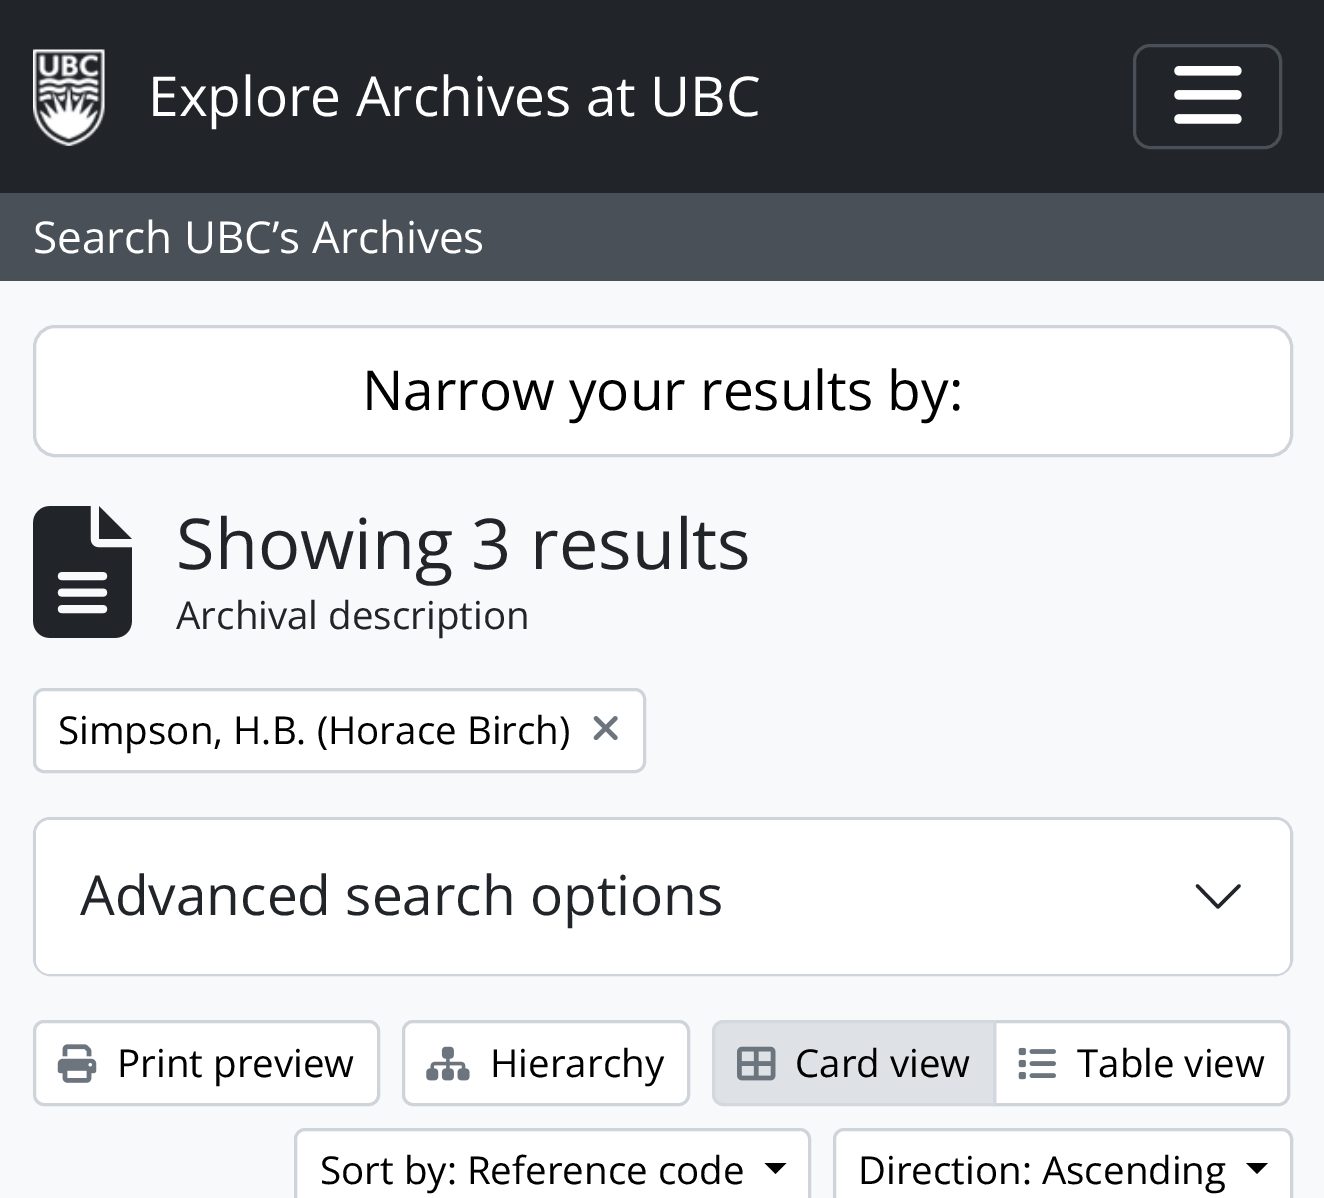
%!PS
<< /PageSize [1324 1198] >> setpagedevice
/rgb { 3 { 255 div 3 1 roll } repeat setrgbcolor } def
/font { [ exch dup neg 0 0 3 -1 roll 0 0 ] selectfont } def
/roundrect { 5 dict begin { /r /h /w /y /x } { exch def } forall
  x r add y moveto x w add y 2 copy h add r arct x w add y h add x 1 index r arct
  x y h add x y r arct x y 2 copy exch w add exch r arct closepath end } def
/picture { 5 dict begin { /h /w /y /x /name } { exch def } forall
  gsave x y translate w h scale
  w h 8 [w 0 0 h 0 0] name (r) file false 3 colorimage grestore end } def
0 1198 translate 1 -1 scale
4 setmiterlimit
248 249 250 rgb
0 0 1324 1198 rectfill
33 37 41 rgb
0 0 1324 193 rectfill
(img/1.rgb) 33 49 72 97 picture
73 80 87 rgb
3 setlinewidth
1134.5 45.5 146 102 15.5 roundrect stroke
(img/2.rgb) 1174 66 68 58 picture
0 193 1324 88 rectfill
255 255 255 rgb
34.5 326.5 1257 129 20.5 roundrect gsave fill grestore
206 212 218 rgb
stroke
(img/3.rgb) 33 506 99 132 picture
255 255 255 rgb
34.5 689.5 610 82 9.5 roundrect gsave fill grestore
206 212 218 rgb
stroke
(img/4.rgb) 593 716 25 25 picture
34.5 818.5 1257 156 15.5 roundrect stroke
255 255 255 rgb
36 820 1254 154 14 roundrect fill
33 37 41 rgb
3.4 setlinewidth
1 setlinecap
1 setlinejoin
1197.5 886 moveto 1218 907 lineto 1239 886 lineto stroke
255 255 255 rgb
34.5 1021.5 344 83 9.5 roundrect gsave fill grestore
206 212 218 rgb
3 setlinewidth
0 setlinecap
0 setlinejoin
stroke
(img/5.rgb) 57 1044 40 39 picture
255 255 255 rgb
403.5 1021.5 285 83 9.5 roundrect gsave fill grestore
206 212 218 rgb
stroke
(img/6.rgb) 426 1046 44 35 picture
255 255 255 rgb
994.5 1021.5 moveto 1279 1021.5 lineto 1284 1021.5 1288.5 1026 1288.5 1031 curveto 1288.5 1095 lineto 1288.5 1100 1284 1104.5 1279 1104.5 curveto 994.5 1104.5 lineto closepath gsave fill grestore
206 212 218 rgb
stroke
222 226 230 rgb
723 1021.5 moveto 994.5 1021.5 lineto 994.5 1104.5 lineto 723 1104.5 lineto 718 1104.5 713.5 1100 713.5 1095 curveto 713.5 1031 lineto 713.5 1026 718 1021.5 723 1021.5 curveto closepath gsave fill grestore
211 216 222 rgb
stroke
(img/7.rgb) 737 1046 39 35 picture
(img/8.rgb) 1018 1047 38 33 picture
255 255 255 rgb
295.5 1129.5 514 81 9.5 roundrect gsave fill grestore
206 212 218 rgb
stroke
0 0 0 rgb
764.5 1163 moveto 786.5 1163 lineto 775.5 1174 lineto closepath fill
255 255 255 rgb
834.5 1129.5 457 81 9.5 roundrect gsave fill grestore
206 212 218 rgb
stroke
0 0 0 rgb
1246 1163 moveto 1268 1163 lineto 1257 1174 lineto closepath fill
/OpenSans-Regular 55 font
255 255 255 rgb
148 116 moveto (Explore Archives at UBC) show
/OpenSans-Regular 44 font
33 253 moveto (Search UBC’s Archives) show
/OpenSans-Regular 55 font
0 0 0 rgb
362 410 moveto (Narrow your results by:) show
/OpenSans-Regular 70.25 font
33 37 41 rgb
176 569 moveto (Showing 3 results) show
/OpenSans-Regular 38.5 font
176 629 moveto (Archival description) show
0 0 0 rgb
58 744 moveto (Simpson, H.B. \(Horace Birch\)) show
/OpenSans-Regular 55 font
33 37 41 rgb
80 915 moveto (Advanced search options) show
/OpenSans-Regular 38.5 font
0 0 0 rgb
[
  [(Print preview) 117 1077]
  [(Hierarchy) 490 1077]
  [(Card view) 795 1077]
  [(Table view) 1077 1077]
  [(Sort by: Reference code) 320 1184]
  [(Direction: Ascending) 858 1184]
] { aload pop moveto show } forall
showpage
